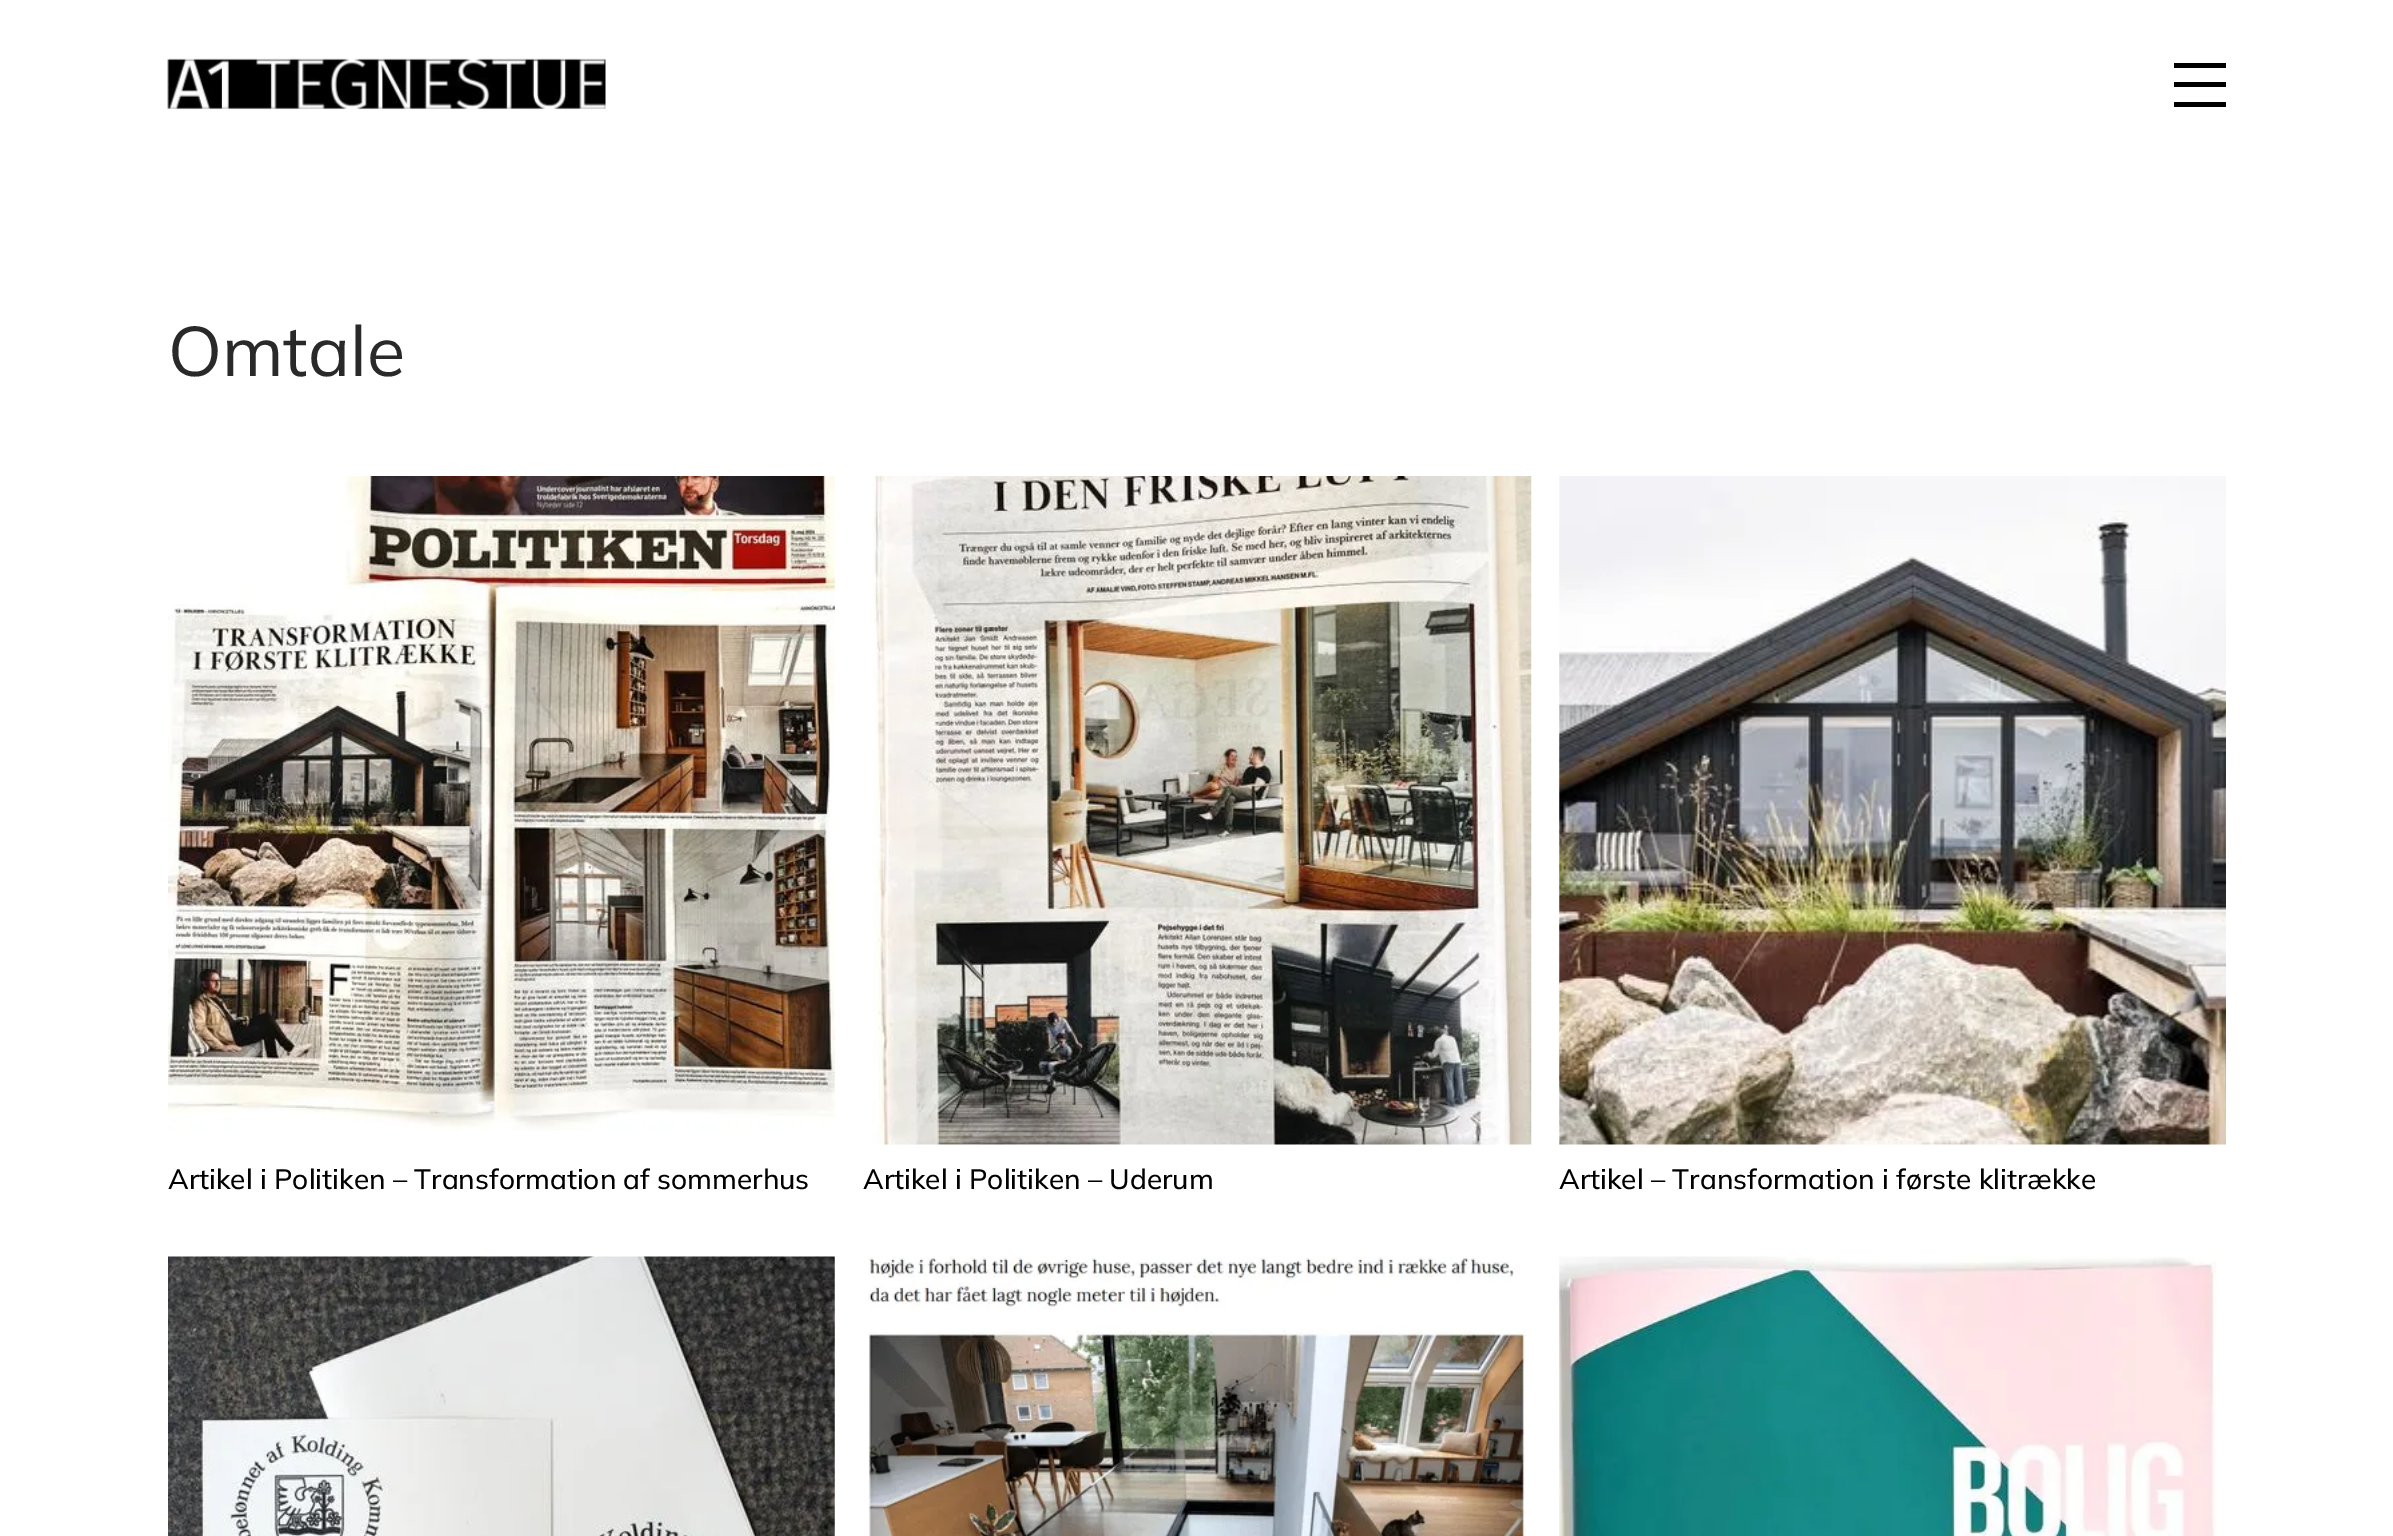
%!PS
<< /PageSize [2393 1536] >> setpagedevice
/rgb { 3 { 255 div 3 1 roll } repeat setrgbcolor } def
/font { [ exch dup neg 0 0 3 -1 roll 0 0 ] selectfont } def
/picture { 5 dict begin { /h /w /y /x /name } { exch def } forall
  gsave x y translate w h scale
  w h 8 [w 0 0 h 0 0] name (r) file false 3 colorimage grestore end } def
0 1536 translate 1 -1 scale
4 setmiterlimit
255 255 255 rgb
0 0 2393 1536 rectfill
(img/1.rgb) 167 58 439 52 picture
[
  [2174 63 52 5 0 0 0]
  [2174 82 52 5 0 0 0]
  [2174 102 52 5 0 0 0]
] { aload pop rgb rectfill } forall
(img/2.rgb) 168 476 667 655 picture
(img/3.rgb) 872 476 660 669 picture
(img/4.rgb) 1559 476 667 669 picture
(img/5.rgb) 168 1256 667 280 picture
(img/6.rgb) 868 1256 658 280 picture
(img/7.rgb) 1559 1256 658 280 picture
/Mulish-Regular 70 font
41 41 41 rgb
168 376 moveto (Omtale) show
/Mulish-Medium 28 font
0 0 0 rgb
[
  [(Artikel i Politiken – Transformation af sommerhus) 168 1189]
  [(Artikel i Politiken – Uderum) 863 1189]
  [(Artikel – Transformation i første klitrække) 1559 1189]
] { aload pop moveto show } forall
showpage
